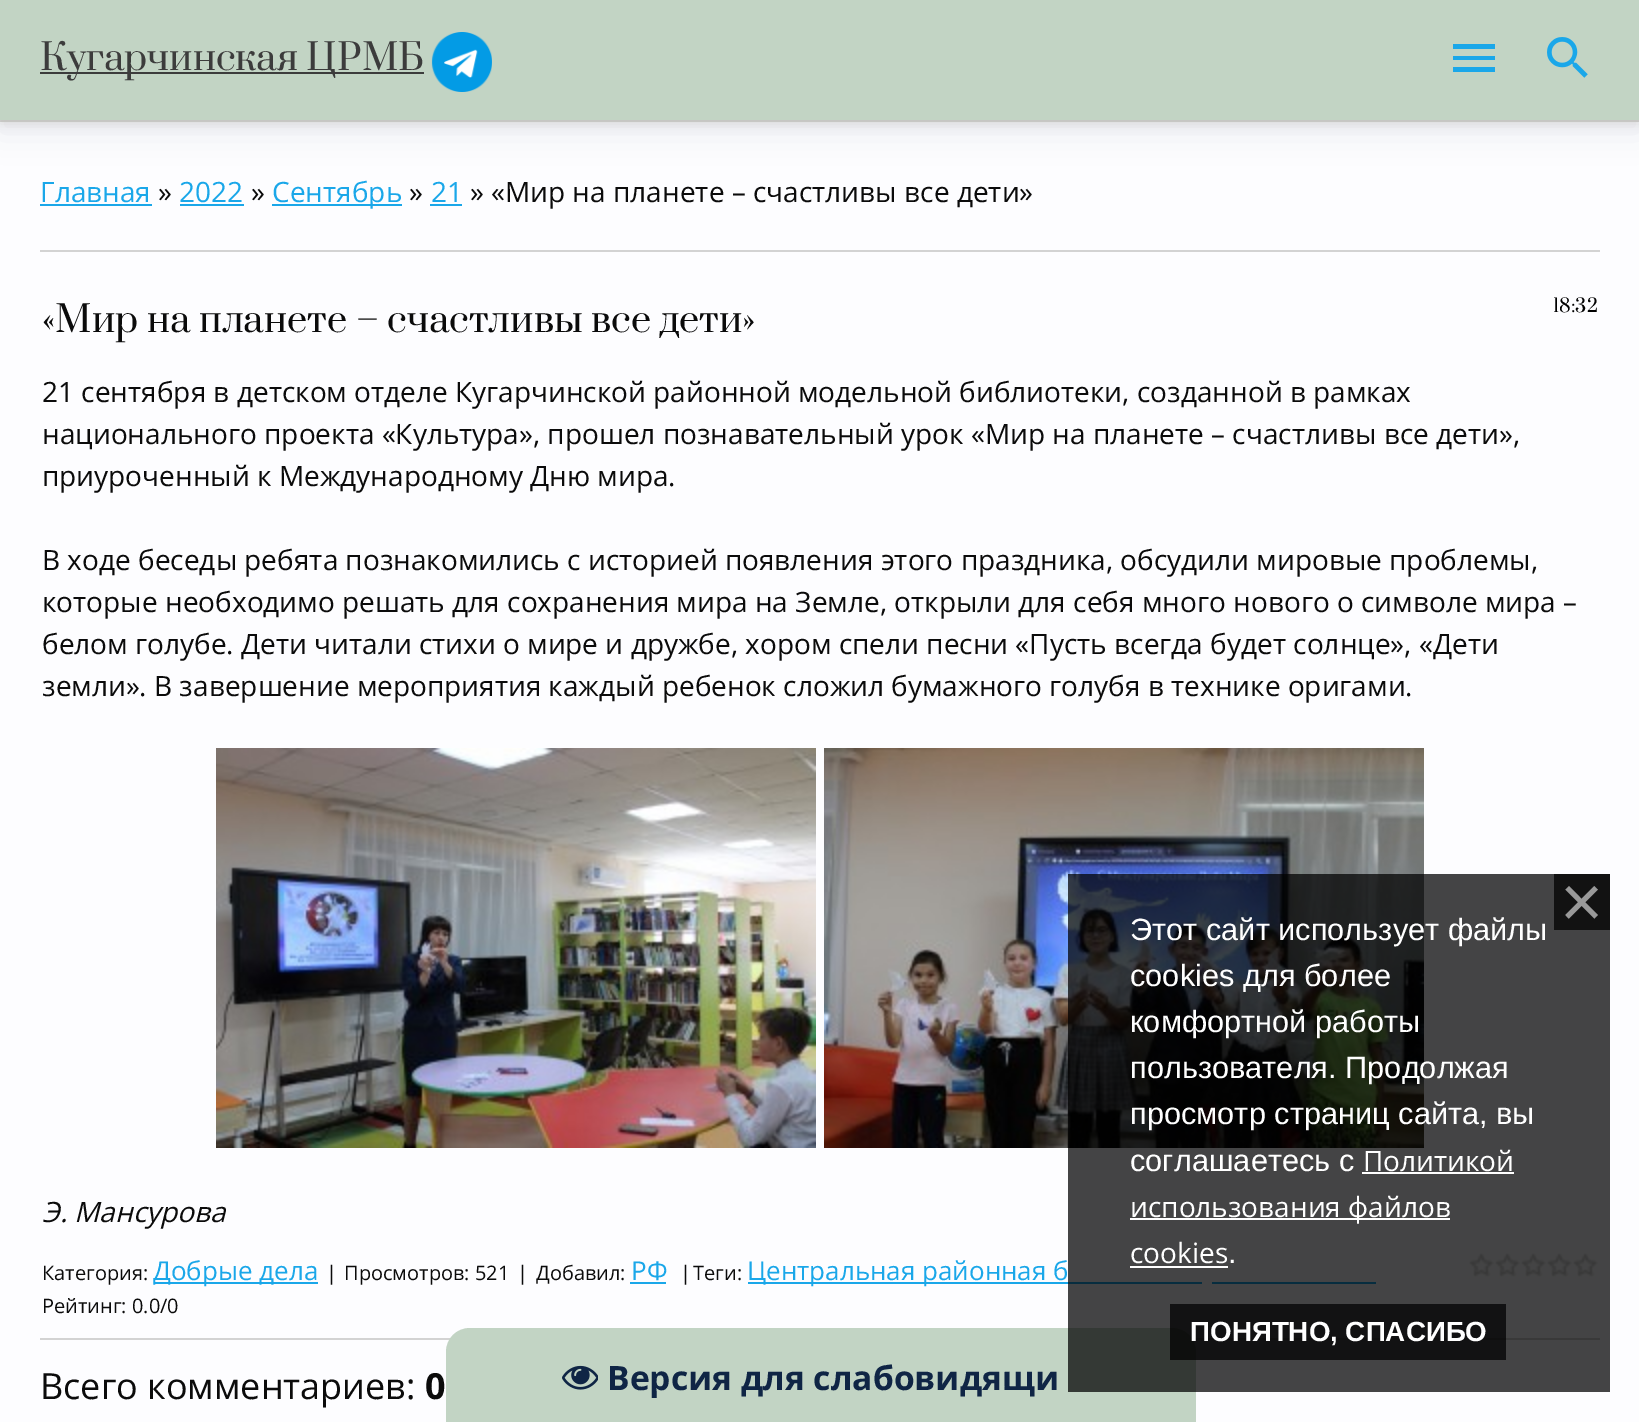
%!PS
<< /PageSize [1639 1422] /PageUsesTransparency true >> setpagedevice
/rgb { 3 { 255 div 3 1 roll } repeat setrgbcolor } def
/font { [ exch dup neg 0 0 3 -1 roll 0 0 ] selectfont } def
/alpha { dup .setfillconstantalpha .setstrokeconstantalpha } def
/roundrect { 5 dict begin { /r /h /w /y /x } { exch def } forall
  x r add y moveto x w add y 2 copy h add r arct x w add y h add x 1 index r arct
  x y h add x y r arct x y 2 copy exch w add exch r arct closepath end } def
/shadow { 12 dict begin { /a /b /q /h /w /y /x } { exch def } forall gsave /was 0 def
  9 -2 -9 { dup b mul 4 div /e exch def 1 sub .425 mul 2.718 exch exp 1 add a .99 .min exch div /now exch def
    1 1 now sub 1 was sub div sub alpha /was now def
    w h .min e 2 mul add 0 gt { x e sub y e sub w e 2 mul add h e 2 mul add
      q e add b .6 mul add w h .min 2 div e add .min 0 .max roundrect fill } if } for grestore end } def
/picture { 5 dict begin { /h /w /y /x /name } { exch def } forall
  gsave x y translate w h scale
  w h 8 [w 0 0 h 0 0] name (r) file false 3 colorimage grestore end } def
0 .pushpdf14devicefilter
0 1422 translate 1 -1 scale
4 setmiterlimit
253 253 255 rgb
0 0 1639 1422 rectfill
46 62 108 rgb
0 10 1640 122 0 15 0.1 shadow
211 211 211 rgb
0 120 1639 2 rectfill
48 37 0 rgb
0 4 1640 120 0 5 0.1 shadow
194 212 196 rgb
0 0 1639 120 rectfill
60 60 60 rgb
40 72 384 2 rectfill
(img/1.rgb) 431 32 61 60 picture
26 167 233 rgb
1453 44 moveto 1495 44 lineto 1495 49 lineto 1453 49 lineto closepath 1453 60 moveto 1453 56 lineto 1495 56 lineto 1495 60 lineto closepath 1453 72 moveto 1453 67 lineto 1495 67 lineto 1495 72 lineto closepath fill
(img/2.rgb) 1547 37 41 41 picture
[
  [40 204 112 2 26 167 233]
  [180 204 64 2 26 167 233]
  [272 204 130 2 26 167 233]
  [430 204 32 2 26 167 233]
  [40 250 1560 2 211 211 211]
  [40 1338 1560 2 211 211 211]
] { aload pop rgb rectfill } forall
(img/3.rgb) 216 748 600 400 picture
(img/4.rgb) 824 748 600 400 picture
[
  [154 1282 164 2 26 167 233]
  [630 1282 36 2 26 167 233]
  [748 1282 454 2 26 167 233]
  [1212 1282 164 2 26 167 233]
] { aload pop rgb rectfill } forall
(img/5.rgb) 1469 1253 129 24 picture
194 212 196 rgb
470 1328 moveto 1172 1328 lineto 1185.5 1328 1196 1338.5 1196 1352 curveto 1196 1422 lineto 446 1422 lineto 446 1352 lineto 446 1338.5 456.5 1328 470 1328 curveto closepath fill
0.73 alpha
[
  [1068 874 542 518 0 0 0]
] { aload pop rgb rectfill } forall
1 alpha
[
  [1554 874 56 56 18 18 18]
] { aload pop rgb rectfill } forall
0.73 alpha
[
  [1170 1304 336 56 0 0 0]
] { aload pop rgb rectfill } forall
1 alpha
[
  [1362 1172 152 2 255 255 255]
  [1130 1218 320 2 255 255 255]
  [1130 1266 98 2 255 255 255]
] { aload pop rgb rectfill } forall
(img/6.rgb) 562 1365 36 25 picture
/Prata-Regular 36 font
60 60 60 rgb
40 70 moveto (Кугарчинская ЦРМБ) show
/OpenSans-Regular 28 font
26 167 233 rgb
40 202 moveto (Главная) show
11 11 11 rgb
158 202 moveto (») show
26 167 233 rgb
179 202 moveto (2022) show
11 11 11 rgb
251 202 moveto (») show
26 167 233 rgb
272 202 moveto (Сентябрь) show
11 11 11 rgb
409 202 moveto (») show
26 167 233 rgb
431 202 moveto (21) show
11 11 11 rgb
470 202 moveto (» «Мир на планете – счастливы все дети») show
/Prata-Regular 36 font
42 332 moveto («Мир на планете – счастливы все дети») show
/Prata-Regular 18 font
0 0 0 rgb
1553 312 moveto (18:32) show
/OpenSans-Regular 28 font
11 11 11 rgb
[
  [(21 сентября в детском отделе Кугарчинской районной модельной библиотеки, созданной в рамках) 42 402]
  [(национального проекта «Культура», прошел познавательный урок «Мир на планете – счастливы все дети»,) 42 444]
  [(приуроченный к Международному Дню мира.) 42 486]
  [(В ходе беседы ребята познакомились с историей появления этого праздника, обсудили мировые проблемы,) 42 570]
  [(которые необходимо решать для сохранения мира на Земле, открыли для себя много нового о символе мира –) 42 612]
  [(белом голубе. Дети читали стихи о мире и дружбе, хором спели песни «Пусть всегда будет солнце», «Дети) 42 654]
  [(земли». В завершение мероприятия каждый ребенок сложил бумажного голубя в технике оригами.) 42 696]
] { aload pop moveto show } forall
/OpenSans-Italic 28 font
42 1222 moveto (Э. Мансурова) show
/OpenSans-Regular 20 font
42 1280 moveto (Категория:) show
/OpenSans-Regular 26 font
26 167 233 rgb
153 1280 moveto (Добрые дела) show
/OpenSans-Regular 20 font
11 11 11 rgb
[
  [(|) 326 1280]
  [(Просмотров: 521) 344 1280]
  [(|) 517 1280]
  [(Добавил:) 536 1280]
] { aload pop moveto show } forall
/OpenSans-Regular 26 font
26 167 233 rgb
631 1280 moveto (РФ) show
/OpenSans-Regular 20 font
11 11 11 rgb
680 1280 moveto (|) show
693 1280 moveto (Теги:) show
/OpenSans-Regular 26 font
26 167 233 rgb
747 1280 moveto (Центральная районная б) show
/OpenSans-Regular 20 font
11 11 11 rgb
42 1313 moveto (Рейтинг: 0.0/0) show
/OpenSans-Regular 36 font
40 1399 moveto (Всего комментариев:) show
/OpenSans-Bold 36 font
425 1399 moveto (0) show
/LiberationSans-Regular 74 font
153 153 153 rgb
1560 927 moveto (×) show
/LiberationSans-Bold 27.75 font
255 255 255 rgb
1190 1341 moveto (ПОНЯТНО, СПАСИБО) show
/LiberationSans-Regular 30.75 font
[
  [(Этот сайт использует файлы) 1130 940]
  [(cookies для более) 1130 986]
  [(комфортной работы) 1130 1032]
  [(пользователя. Продолжая) 1130 1078]
  [(просмотр страниц сайта, вы) 1130 1124]
  [(соглашаетесь с) 1130 1171]
] { aload pop moveto show } forall
/OpenSans-Regular 28 font
[
  [(Политикой) 1363 1171]
  [(использования файлов) 1130 1217]
  [(cookies) 1130 1263]
] { aload pop moveto show } forall
/LiberationSans-Regular 30.75 font
1228 1263 moveto (.) show
/OpenSans-Bold 33.6 font
15 37 69 rgb
607 1390 moveto (Версия для слабовидящи) show
.poppdf14devicefilter showpage
